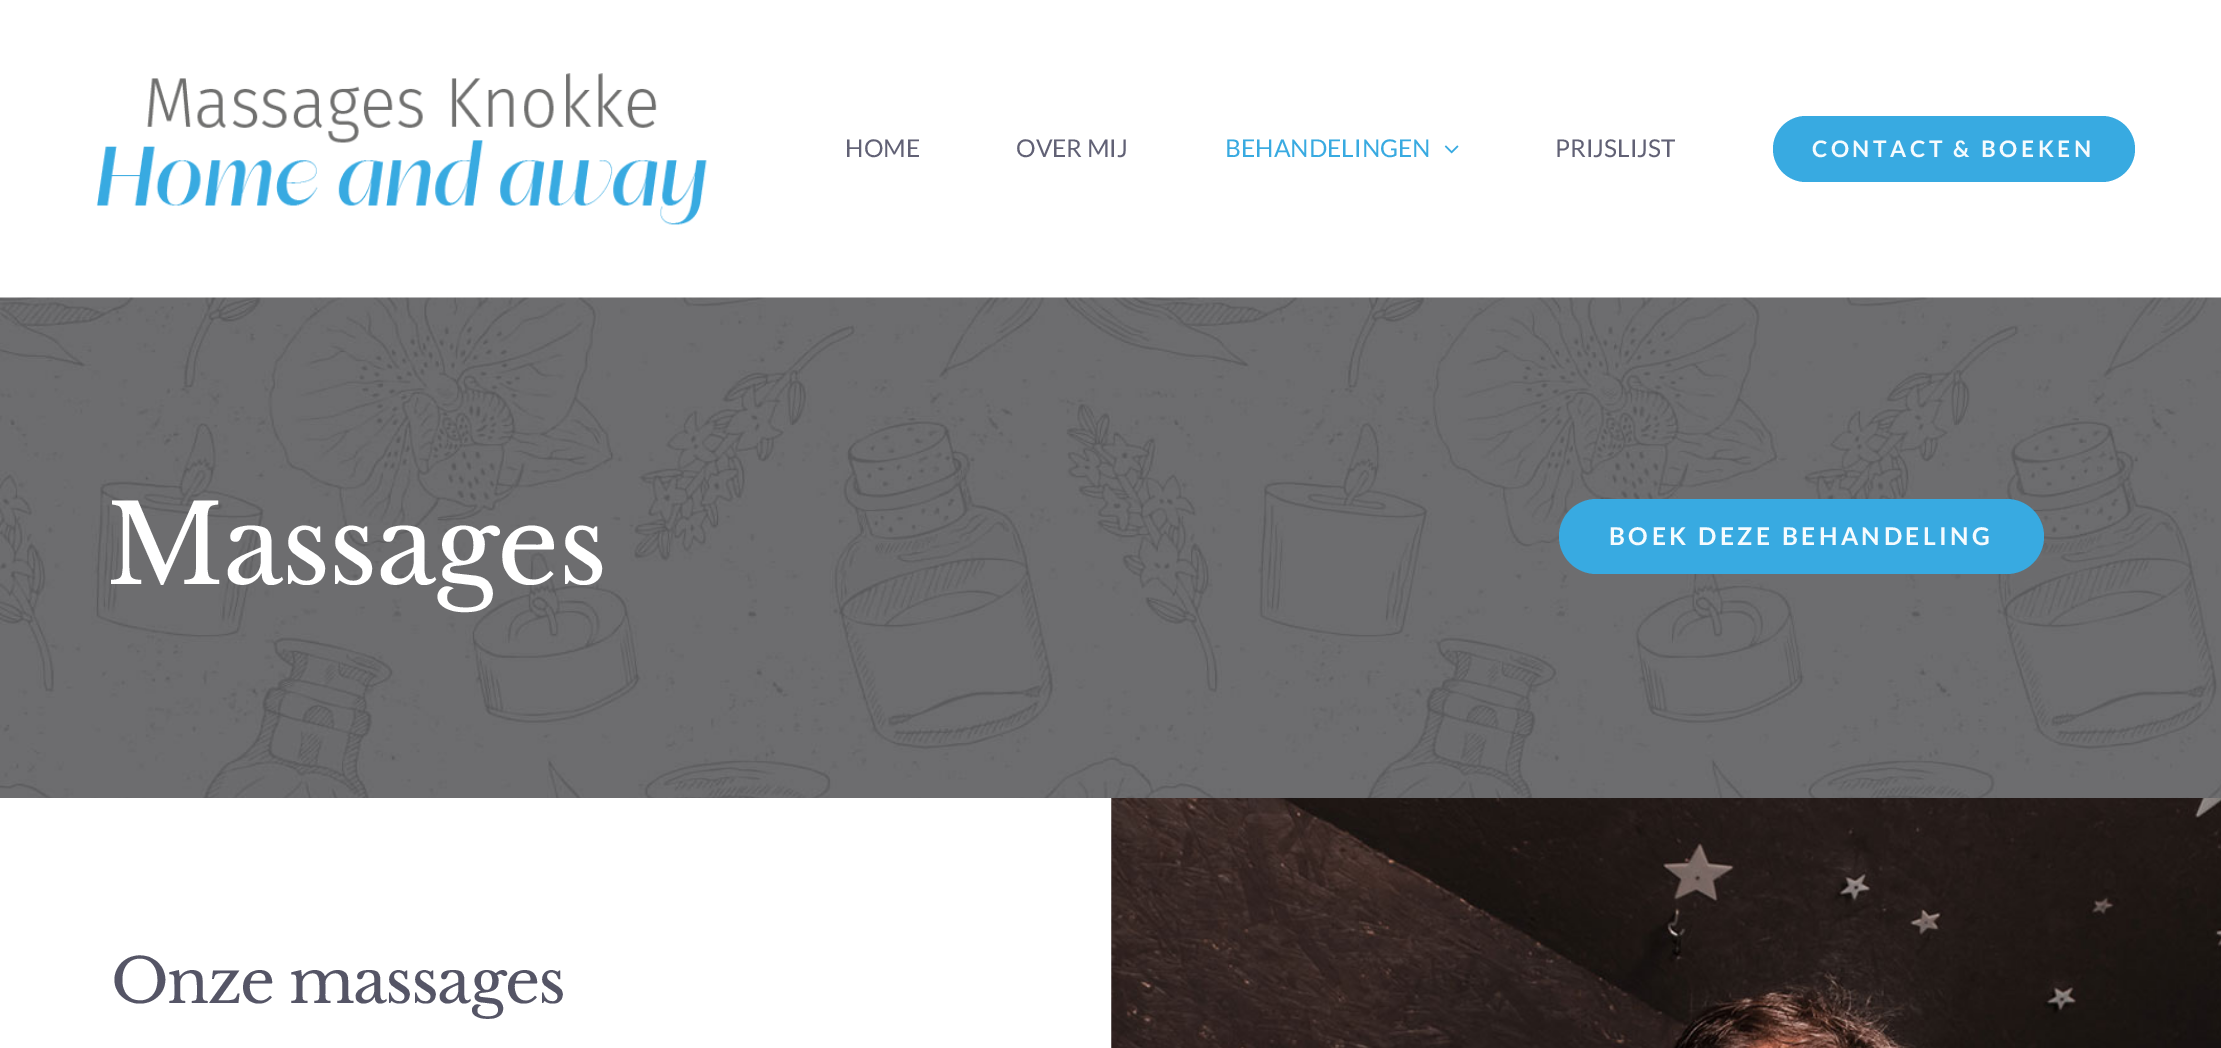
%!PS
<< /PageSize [2221 1048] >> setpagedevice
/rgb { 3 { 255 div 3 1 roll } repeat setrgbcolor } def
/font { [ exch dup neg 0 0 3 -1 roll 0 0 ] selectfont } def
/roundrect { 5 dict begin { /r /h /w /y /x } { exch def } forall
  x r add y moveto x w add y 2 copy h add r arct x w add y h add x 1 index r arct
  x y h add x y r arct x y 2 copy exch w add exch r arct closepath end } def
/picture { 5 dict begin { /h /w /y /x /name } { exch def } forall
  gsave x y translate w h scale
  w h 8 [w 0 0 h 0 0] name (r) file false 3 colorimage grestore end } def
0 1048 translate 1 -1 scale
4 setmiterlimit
255 255 255 rgb
0 0 2221 1048 rectfill
(img/1.rgb) 96 73 611 152 picture
(img/2.rgb) 1444 145 15 9 picture
56 170 225 rgb
1773 116 362 66 33 roundrect fill
(img/3.rgb) 0 297 2221 501 picture
1559 499 485 75 37.5 roundrect fill
(img/4.rgb) 1111 798 1110 250 picture
/Lato-Regular 24.5 font
97 97 117 rgb
845 157 moveto (HOME) show
1016 157 moveto (OVER MIJ) show
56 170 225 rgb
1225 157 moveto (BEHANDELINGEN) show
97 97 117 rgb
1555 157 moveto (PRIJSLIJST) show
/Lato-Bold 22.75 font
245 251 254 rgb
1812 157 moveto 3.5 0 (CONTACT & BOEKEN) ashow
/LibreBaskerville-Regular 108.5 font
255 255 255 rgb
106 584 moveto -1.75 0 (Massages) ashow
/Lato-Bold 24.5 font
245 251 254 rgb
1609 545 moveto 3.5 0 (BOEK DEZE BEHANDELING) ashow
/LibreBaskerville-Regular 61.25 font
85 85 102 rgb
111 1003 moveto -1.75 0 (Onze massages) ashow
showpage
